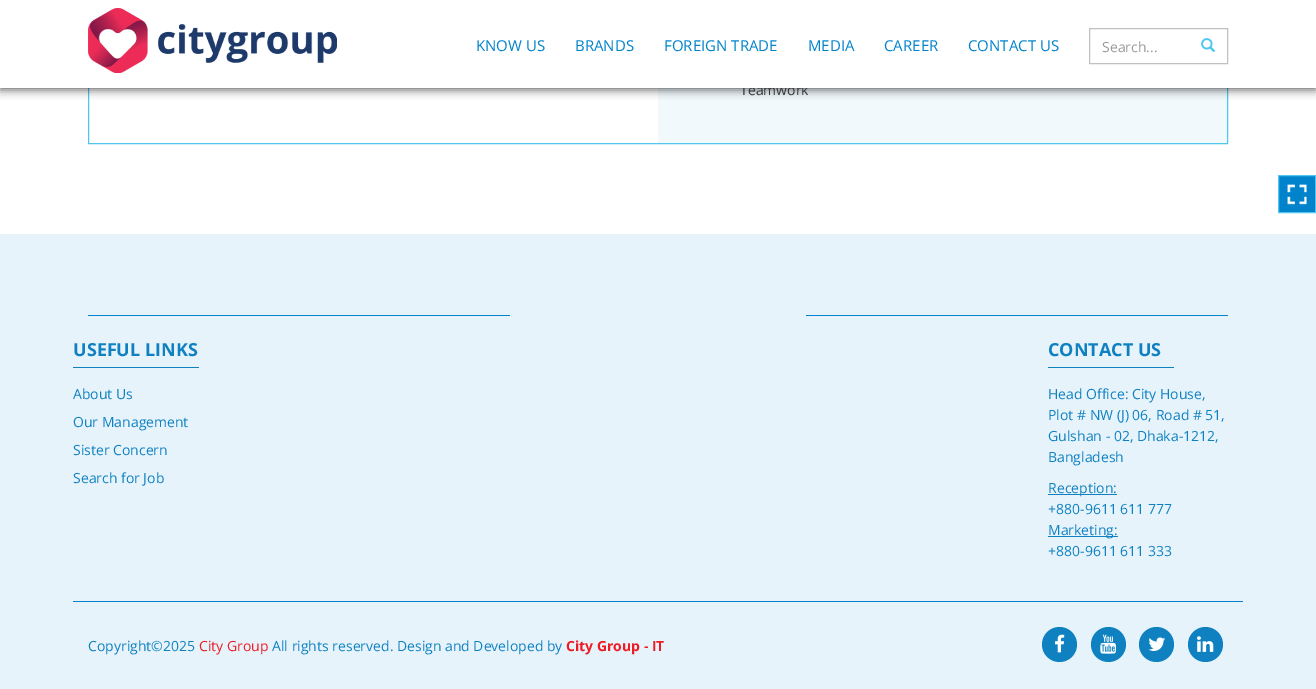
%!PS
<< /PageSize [1316 689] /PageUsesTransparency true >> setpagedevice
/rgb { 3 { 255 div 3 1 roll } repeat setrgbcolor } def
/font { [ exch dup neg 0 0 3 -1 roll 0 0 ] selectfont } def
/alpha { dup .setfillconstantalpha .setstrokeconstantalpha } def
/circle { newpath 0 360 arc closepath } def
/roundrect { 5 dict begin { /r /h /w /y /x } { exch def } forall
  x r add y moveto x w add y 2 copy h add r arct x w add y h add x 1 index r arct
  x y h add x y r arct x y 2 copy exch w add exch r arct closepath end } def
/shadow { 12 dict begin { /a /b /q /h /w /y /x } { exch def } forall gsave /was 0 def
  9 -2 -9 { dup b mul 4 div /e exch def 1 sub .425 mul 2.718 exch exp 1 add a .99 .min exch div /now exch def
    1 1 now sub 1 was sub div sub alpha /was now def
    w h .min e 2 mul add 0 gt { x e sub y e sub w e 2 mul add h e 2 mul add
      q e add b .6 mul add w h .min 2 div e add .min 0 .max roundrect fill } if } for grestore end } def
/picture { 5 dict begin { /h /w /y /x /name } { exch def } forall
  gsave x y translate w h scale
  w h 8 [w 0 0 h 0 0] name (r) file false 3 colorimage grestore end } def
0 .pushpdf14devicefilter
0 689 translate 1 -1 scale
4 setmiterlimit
255 255 255 rgb
0 0 1316 689 rectfill
80 198 239 rgb
88.5 -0.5 1139 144 rectstroke
242 249 253 rgb
658 88 569 55 rectfill
0 0 0 rgb
0 2 1316 88 0 4.5 0.6 shadow
0 131 203 rgb
1278.5 175.5 moveto 1315.5 175.5 lineto 1315.5 212.5 lineto 1278.5 212.5 lineto closepath gsave fill grestore
80 198 239 rgb
stroke
(img/3.rgb) 1287 184 20 21 picture
[
  [0 234 1316 455 230 243 251]
  [88 315 422 1 0 131 203]
  [806 315 422 1 0 131 203]
  [73 601 1170 1 0 131 203]
  [73 367 126 1 16 129 192]
  [1048 367 126 1 16 129 192]
  [1048 494 69 1 16 129 192]
  [1048 536 70 1 16 129 192]
] { aload pop rgb rectfill } forall
1059.5 644.5 17.5 circle fill
(img/4.rgb) 1055 634 10 19 picture
1108.5 644.5 17.5 circle fill
(img/5.rgb) 1100 634 16 20 picture
1156.5 644.5 17.5 circle fill
(img/6.rgb) 1148 637 17 14 picture
1205.5 644.5 17.5 circle fill
(img/7.rgb) 1197 636 17 16 picture
/OpenSans-Regular 14 font
51 51 51 rgb
740 95 moveto (Teamwork) show
255 255 255 rgb
0 0 1316 88 rectfill
193 193 193 rgb
1089.5 28.5 138 35 rectstroke
(img/2.rgb) 1201 38 15 14 picture
153 153 153 rgb
1102 52 moveto (Search...) show
/OpenSans-Regular 15 font
0 131 203 rgb
[
  [(CONTACT US) 968 51]
  [(CAREER) 884 51]
  [(MEDIA) 808 51]
  [(FOREIGN TRADE) 664 51]
  [(BRANDS) 575 51]
  [(KNOW US) 476 51]
] { aload pop moveto show } forall
(img/1.rgb) 88 8 249 65 picture
/OpenSans-Bold 18 font
16 129 192 rgb
73 356 moveto (USEFUL LINKS) show
/OpenSans-Regular 14 font
[
  [(About Us) 73 399]
  [(Our Management) 73 427]
  [(Sister Concern) 73 455]
  [(Search for Job) 73 483]
] { aload pop moveto show } forall
/OpenSans-Bold 18 font
1048 356 moveto (CONTACT US) show
/OpenSans-Regular 14 font
[
  [(Head Office: City House,) 1048 399]
  [(Plot # NW \(J\) 06, Road # 51,) 1048 420]
  [(Gulshan - 02, Dhaka-1212,) 1048 441]
  [(Bangladesh) 1048 462]
  [(Reception:) 1048 493]
  [(+880-9611 611 777) 1048 514]
  [(Marketing:) 1048 535]
  [(+880-9611 611 333) 1048 556]
  [(Copyright©2025) 88 651]
] { aload pop moveto show } forall
237 28 36 rgb
199 651 moveto (City Group) show
16 129 192 rgb
272 651 moveto (All rights reserved. Design and Developed by) show
/OpenSans-Bold 14 font
237 28 36 rgb
566 651 moveto (City Group - IT) show
.poppdf14devicefilter showpage
